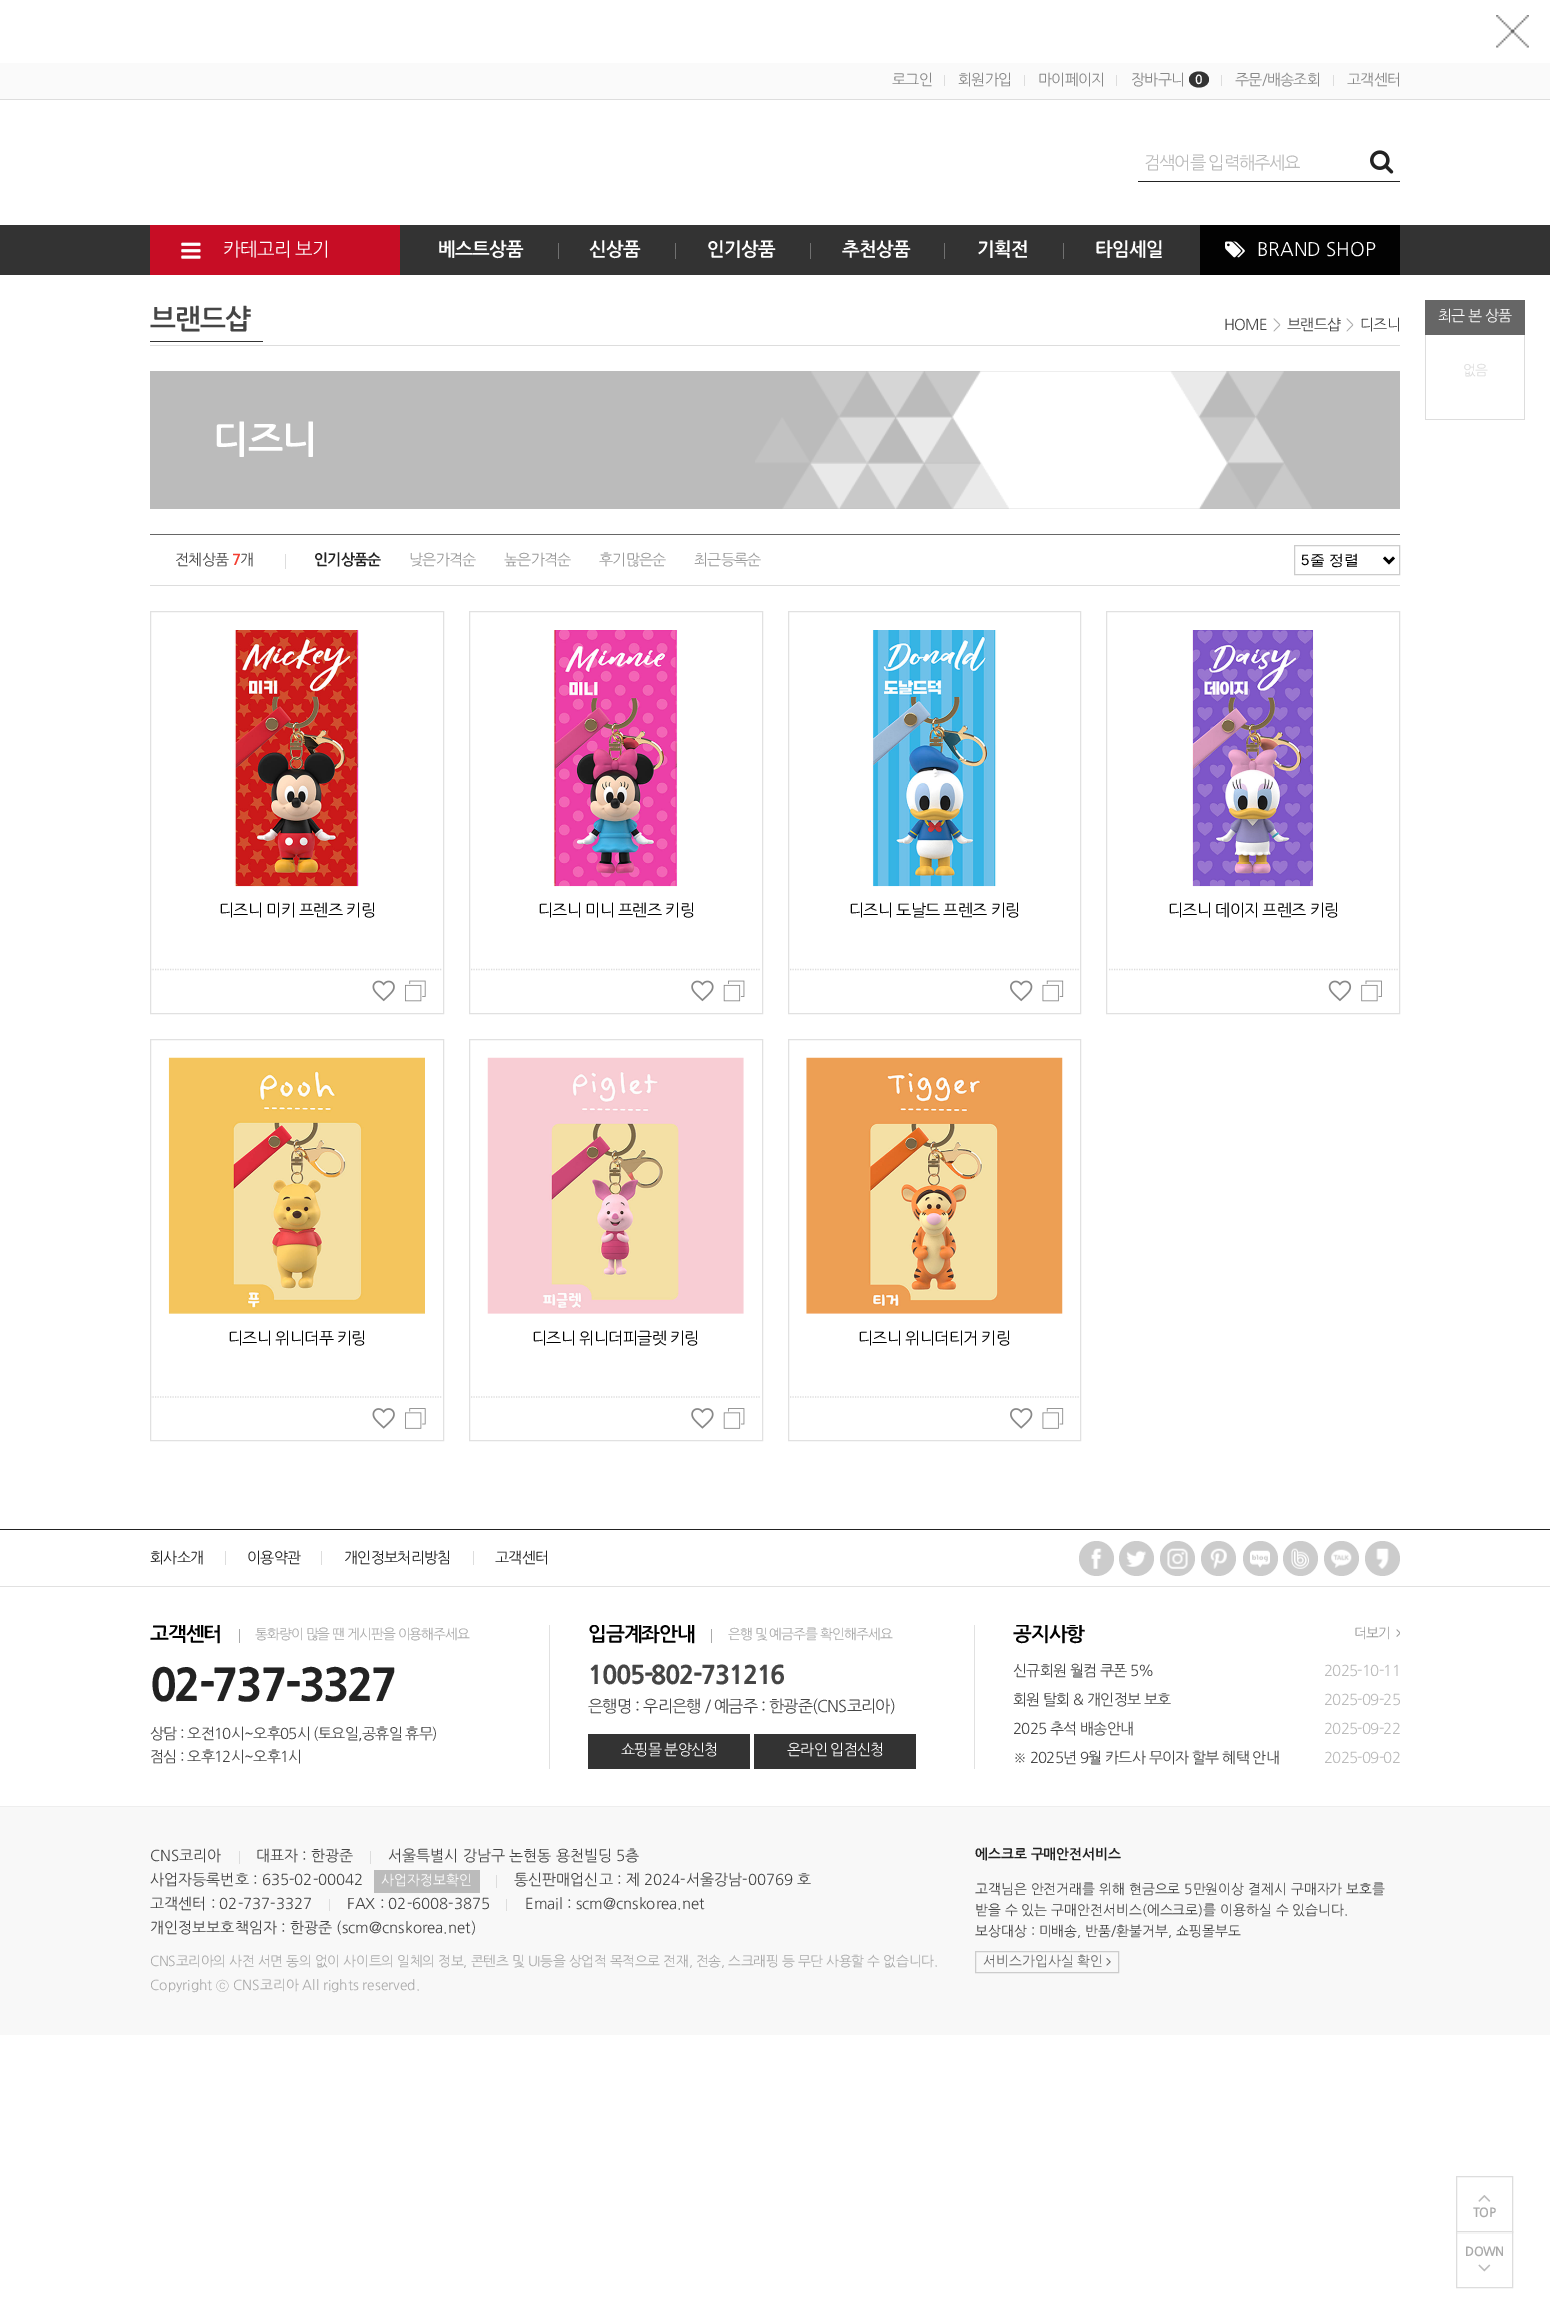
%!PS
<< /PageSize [1550 2324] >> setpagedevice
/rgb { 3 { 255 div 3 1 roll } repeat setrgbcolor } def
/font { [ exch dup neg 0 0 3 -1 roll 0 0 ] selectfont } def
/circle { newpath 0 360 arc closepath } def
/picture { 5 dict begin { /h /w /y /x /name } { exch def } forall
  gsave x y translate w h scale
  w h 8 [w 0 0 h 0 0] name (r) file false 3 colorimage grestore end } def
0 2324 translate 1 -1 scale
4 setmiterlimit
255 255 255 rgb
0 0 1550 2324 rectfill
(img/1.rgb) 1496 15 33 33 picture
[
  [0 63 1550 36 250 250 250]
  [0 99 1550 1 221 221 221]
  [944 75 1 11 221 221 221]
  [1024 75 1 11 221 221 221]
  [1116 75 1 11 221 221 221]
] { aload pop rgb rectfill } forall
51 51 51 rgb
1199 71.5 moveto 1204.5 71.5 1209 75 1209 79.5 curveto 1209 84 1204.5 87.5 1199 87.5 curveto 1193.5 87.5 1189 84 1189 79.5 curveto 1189 75 1193.5 71.5 1199 71.5 curveto closepath fill
[
  [1221 75 1 11 221 221 221]
  [1333 75 1 11 221 221 221]
  [1138 181 262 1 34 34 34]
] { aload pop rgb rectfill } forall
(img/2.rgb) 1370 150 24 24 picture
51 51 51 rgb
0 225 1550 50 rectfill
199 13 37 rgb
150 225 250 50 rectfill
(img/3.rgb) 181 242 20 17 picture
[
  [558 243 1 16 112 112 112]
  [675 243 1 16 112 112 112]
  [810 243 1 16 112 112 112]
  [944 243 1 16 112 112 112]
  [1063 243 1 16 112 112 112]
  [1200 225 200 50 2 2 2]
] { aload pop rgb rectfill } forall
(img/4.rgb) 1225 241 20 17 picture
[
  [150 345 1250 1 221 221 221]
  [150 341 113 1 51 51 51]
  [150 371 1250 138 187 187 187]
] { aload pop rgb rectfill } forall
(img/5.rgb) 755 371 557 138 picture
[
  [150 534 1250 1 102 102 102]
  [150 585 1250 1 221 221 221]
  [285 554 1 15 221 221 221]
] { aload pop rgb rectfill } forall
204 204 204 rgb
1294.5 545.5 105 29 rectstroke
0 0 0 rgb
2.5 setlinewidth
1384 557.5 moveto 1389 562.5 lineto 1394 557.5 lineto stroke
225 225 225 rgb
1 setlinewidth
150.5 611.5 293 402 rectstroke
(img/6.rgb) 234 630 125 257 picture
gsave
151 613 292 400 rectclip
221 221 221 rgb
1.2 setlinewidth
[1.25 1.25] 0 setdash
97.5 969.5 moveto 442.5 969.5 lineto stroke
grestore
(img/7.rgb) 372 980 23 22 picture
(img/8.rgb) 405 980 21 22 picture
469.5 611.5 293 402 rectstroke
(img/9.rgb) 553 630 125 257 picture
gsave
470 613 291 400 rectclip
221 221 221 rgb
1.2 setlinewidth
[1.25 1.25] 0 setdash
416 969.5 moveto 761 969.5 lineto stroke
grestore
(img/10.rgb) 691 980 23 22 picture
(img/11.rgb) 723 980 22 22 picture
788.5 611.5 292 402 rectstroke
(img/12.rgb) 872 630 125 257 picture
gsave
789 613 291 400 rectclip
221 221 221 rgb
1.2 setlinewidth
[1.25 1.25] 0 setdash
735 969.5 moveto 1080 969.5 lineto stroke
grestore
(img/13.rgb) 1010 980 23 22 picture
(img/14.rgb) 1042 980 22 22 picture
1106.5 611.5 293 402 rectstroke
(img/15.rgb) 1192 630 122 257 picture
gsave
1108 613 291 400 rectclip
221 221 221 rgb
1.2 setlinewidth
[1.25 1.25] 0 setdash
1054 969.5 moveto 1399 969.5 lineto stroke
grestore
(img/16.rgb) 1328 980 24 22 picture
(img/17.rgb) 1361 980 21 22 picture
150.5 1039.5 293 401 rectstroke
(img/18.rgb) 168 1057 257 257 picture
gsave
151 1040 292 400 rectclip
221 221 221 rgb
1.2 setlinewidth
[1.25 1.25] 0 setdash
97.5 1397 moveto 442.5 1397 lineto stroke
grestore
(img/19.rgb) 372 1408 23 21 picture
(img/20.rgb) 405 1408 21 21 picture
469.5 1039.5 293 401 rectstroke
(img/21.rgb) 487 1057 257 257 picture
gsave
470 1040 291 400 rectclip
221 221 221 rgb
1.2 setlinewidth
[1.25 1.25] 0 setdash
416 1397 moveto 761 1397 lineto stroke
grestore
(img/22.rgb) 691 1408 23 21 picture
(img/23.rgb) 723 1408 22 21 picture
788.5 1039.5 292 401 rectstroke
(img/24.rgb) 806 1057 257 257 picture
gsave
789 1040 291 400 rectclip
221 221 221 rgb
1.2 setlinewidth
[1.25 1.25] 0 setdash
735 1397 moveto 1080 1397 lineto stroke
grestore
(img/25.rgb) 1010 1408 23 21 picture
(img/26.rgb) 1042 1408 22 21 picture
[
  [1425 419 100 1 221 221 221]
  [1425 300 100 35 102 102 102]
  [1524 335 1 84 221 221 221]
  [1425 335 1 84 221 221 221]
] { aload pop rgb rectfill } forall
1456.5 2176.5 56 56 rectstroke
(img/27.rgb) 1478 2195 13 7 picture
255 255 255 rgb
1457 2232 55 1 rectfill
221 221 221 rgb
1456.5 2231.5 56 56 rectstroke
(img/28.rgb) 1478 2264 13 8 picture
[
  [0 1529 1550 1 34 34 34]
  [0 1586 1550 1 225 225 225]
  [225 1551 1 14 221 221 221]
  [321 1551 1 14 221 221 221]
  [473 1551 1 14 221 221 221]
] { aload pop rgb rectfill } forall
204 204 204 rgb
1096.5 1558.5 17.5 circle fill
(img/29.rgb) 1091 1548 11 21 picture
1136.5 1558.5 17.5 circle fill
(img/30.rgb) 1126 1550 20 17 picture
1177.5 1558.5 17.5 circle fill
(img/31.rgb) 1167 1548 21 21 picture
1218.5 1558.5 17.5 circle fill
(img/32.rgb) 1210 1548 17 21 picture
1260.5 1558.5 17.5 circle fill
(img/33.rgb) 1250 1550 20 18 picture
1300.5 1558.5 17.5 circle fill
(img/34.rgb) 1291 1548 18 21 picture
1341.5 1558.5 17.5 circle fill
(img/35.rgb) 1331 1549 21 19 picture
1382.5 1558.5 17.5 circle fill
(img/36.rgb) 1376 1548 13 21 picture
[
  [549 1625 1 144 225 225 225]
  [239 1629 1 14 170 170 170]
  [974 1625 1 144 225 225 225]
  [711 1629 1 14 170 170 170]
  [588 1734 162 35 51 51 51]
  [754 1734 162 35 51 51 51]
] { aload pop rgb rectfill } forall
(img/37.rgb) 1396 1629 4 8 picture
[
  [0 1807 1550 228 248 248 248]
  [0 1806 1550 1 238 238 238]
  [239 1851 1 13 221 221 221]
  [370 1851 1 13 221 221 221]
  [374 1870 106 23 187 187 187]
  [496 1875 1 13 221 221 221]
  [329 1899 1 12 221 221 221]
  [506 1899 1 12 221 221 221]
] { aload pop rgb rectfill } forall
204 204 204 rgb
975.5 1951.5 143 21 rectstroke
(img/38.rgb) 1106 1958 5 8 picture
/NanumGothic-Regular 15 font
136 136 136 rgb
892 85 moveto -0.75 0 (로그인) ashow
958 85 moveto -0.75 0 (회원가입) ashow
1038 85 moveto -0.75 0 (마이페이지) ashow
1131 85 moveto -0.75 0 (장바구니) ashow
/NanumGothic-Bold 12.5 font
255 255 255 rgb
1195 84 moveto (0) show
/NanumGothic-Regular 15 font
136 136 136 rgb
1235 85 moveto -0.75 0 (주문/배송조회) ashow
1347 85 moveto -0.75 0 (고객센터) ashow
/NanumGothic-Regular 17.5 font
187 187 187 rgb
1144 169 moveto -1.25 0 (검색어를 입력해주세요) ashow
/NanumGothic-Regular 18.75 font
255 255 255 rgb
223 256 moveto -0.75 0 (카테고리 보기) ashow
/NanumGothic-Bold 18.75 font
438 256 moveto -0.75 0 (베스트상품) ashow
589 256 moveto -0.75 0 (신상품) ashow
707 256 moveto -0.75 0 (인기상품) ashow
842 256 moveto -0.75 0 (추천상품) ashow
977 256 moveto -0.75 0 (기획전) ashow
1095 256 moveto -0.75 0 (타임세일) ashow
/NanumGothic-Regular 18.75 font
1257 256 moveto (BRAND SHOP) show
/NanumGothic-Bold 27.5 font
69 69 69 rgb
150 329 moveto -0.75 0 (브랜드샵) ashow
/NanumGothic-Regular 15 font
1224 330 moveto -0.75 0 (HOME) ashow
170 170 170 rgb
1273 330 moveto -0.75 0 (>) ashow
69 69 69 rgb
1287 330 moveto -0.75 0 (브랜드샵) ashow
170 170 170 rgb
1346 330 moveto -0.75 0 (>) ashow
69 69 69 rgb
1360 330 moveto -0.75 0 (디즈니) ashow
/NanumGothic-Bold 37.5 font
255 255 255 rgb
213 453 moveto -0.75 0 (디즈니) ashow
/NanumGothic-Regular 15 font
69 69 69 rgb
175 565 moveto -0.75 0 (전체상품) ashow
/NanumGothic-Bold 15 font
243 62 49 rgb
232 565 moveto -0.75 0 (7) ashow
/NanumGothic-Regular 15 font
69 69 69 rgb
240 565 moveto -0.75 0 (개) ashow
/NanumGothic-Bold 15 font
34 34 34 rgb
314 565 moveto -0.75 0 (인기상품순) ashow
/NanumGothic-Regular 15 font
153 153 153 rgb
409 565 moveto -0.75 0 (낮은가격순) ashow
504 565 moveto -0.75 0 (높은가격순) ashow
599 565 moveto -0.75 0 (후기많은순) ashow
694 565 moveto -0.75 0 (최근등록순) ashow
/LiberationSans-Regular 15 font
0 0 0 rgb
1301 565 moveto (5) show
/WenQuanYiZenHei-Medium 15 font
1310 565 moveto (줄 정렬) show
/NanumGothic-Regular 16.25 font
219 916 moveto -0.8 0 (디즈니 미키 프렌즈 키링) ashow
538 916 moveto -0.8 0 (디즈니 미니 프렌즈 키링) ashow
849 916 moveto -0.8 0 (디즈니 도날드 프렌즈 키링) ashow
1168 916 moveto -0.8 0 (디즈니 데이지 프렌즈 키링) ashow
228 1344 moveto -0.8 0 (디즈니 위니더푸 키링) ashow
532 1344 moveto -0.8 0 (디즈니 위니더피글렛 키링) ashow
858 1344 moveto -0.8 0 (디즈니 위니더티거 키링) ashow
/NanumGothic-Regular 15 font
255 255 255 rgb
1438 321 moveto -0.75 0 (최근 본 상품) ashow
/NanumGothic-Regular 13.75 font
221 221 221 rgb
1463 375 moveto -0.75 0 (없음) ashow
/NanumGothic-Bold 12.5 font
170 170 170 rgb
1473 2217 moveto -0.5 0 (TOP) ashow
1465 2256 moveto -0.5 0 (DOWN) ashow
/NanumGothic-Regular 15 font
34 34 34 rgb
150 1563 moveto -0.75 0 (회사소개) ashow
247 1563 moveto -0.75 0 (이용약관) ashow
344 1563 moveto -0.75 0 (개인정보처리방침) ashow
495 1563 moveto -0.75 0 (고객센터) ashow
gsave
150 1625 361 20 rectclip
/NanumGothic-Bold 20 font
0 0 0 rgb
150 1641 moveto -1 0 (고객센터) ashow
grestore
/NanumGothic-Regular 13.75 font
170 170 170 rgb
255 1639 moveto -1 0 (통화량이 많을 땐 게시판을 이용해주세요) ashow
/NanumGothic-ExtraBold 43.75 font
34 34 34 rgb
150 1701 moveto -2.25 0 (02-737-3327) ashow
/NanumGothic-Regular 15 font
69 69 69 rgb
150 1739 moveto -0.75 0 (상담 : 오전10시~오후05시 \(토요일,공휴일 휴무\)) ashow
150 1762 moveto -0.75 0 (점심 : 오후12시~오후1시) ashow
gsave
588 1625 348 20 rectclip
/NanumGothic-Bold 20 font
0 0 0 rgb
588 1641 moveto -1 0 (입금계좌안내) ashow
grestore
/NanumGothic-Regular 13.75 font
170 170 170 rgb
728 1639 moveto -1 0 (은행 및 예금주를 확인해주세요) ashow
/NanumGothic-ExtraBold 25 font
69 69 69 rgb
588 1684 moveto -1.25 0 (1005-802-731216) ashow
/NanumGothic-Regular 16.25 font
588 1712 moveto -0.8 0 (은행명 : 우리은행 / 예금주 : 한광준\(CNS코리아\)) ashow
/NanumGothic-Regular 15 font
255 255 255 rgb
621 1755 moveto -0.8 0 (쇼핑몰 분양신청) ashow
787 1755 moveto -0.8 0 (온라인 입점신청) ashow
gsave
1013 1625 387 19 rectclip
/NanumGothic-Bold 20 font
0 0 0 rgb
1013 1641 moveto -1 0 (공지사항) ashow
grestore
/NanumGothic-Regular 13.75 font
153 153 153 rgb
1354 1638 moveto -1 0 (더보기) ashow
/NanumGothic-Regular 15 font
69 69 69 rgb
1013 1676 moveto -0.75 0 (신규회원 월컴 쿠폰 5%) ashow
187 187 187 rgb
1324 1676 moveto -0.75 0 (2025-10-11) ashow
69 69 69 rgb
1013 1705 moveto -0.75 0 (회원 탈회 & 개인정보 보호) ashow
187 187 187 rgb
1324 1705 moveto -0.75 0 (2025-09-25) ashow
69 69 69 rgb
1013 1734 moveto -0.75 0 (2025 추석 배송안내) ashow
187 187 187 rgb
1324 1734 moveto -0.75 0 (2025-09-22) ashow
69 69 69 rgb
1013 1763 moveto -0.75 0 (※ 2025년 9월 카드사 무이자 할부 혜택 안내) ashow
187 187 187 rgb
1324 1763 moveto -0.75 0 (2025-09-02) ashow
69 69 69 rgb
[
  [(CNS코리아) 150 1861]
  [(대표자 : 한광준) 256 1861]
  [(서울특별시 강남구 논현동 용천빌딩 5층) 388 1861]
  [(사업자등록번호 : 635-02-00042) 150 1885]
] { aload pop moveto show } forall
/NanumGothic-Regular 13.75 font
255 255 255 rgb
381 1885 moveto (사업자정보확인) show
/NanumGothic-Regular 15 font
69 69 69 rgb
[
  [(통신판매업신고 : 제 2024-서울강남-00769 호) 514 1885]
  [(고객센터 : 02-737-3327) 150 1909]
  [(FAX : 02-6008-3875) 347 1909]
  [(Email : scm@cnskorea.net) 525 1909]
  [(개인정보보호책임자 : 한광준 \(scm@cnskorea.net\)) 150 1933]
] { aload pop moveto show } forall
/NanumGothic-Regular 13.75 font
170 170 170 rgb
150 1966 moveto -0.38 0 (CNS코리아의 사전 서면 동의 없이 사이트의 일체의 정보, 콘텐츠 및 UI등을 상업적 목적으로 전재, 전송, 스크래핑 등 무단 사용할 수 없습니다.) ashow
150 1990 moveto (Copyright) show
/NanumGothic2-Regular 13.75 font
216 1990 moveto (ⓒ) show
/NanumGothic-Regular 13.75 font
233 1990 moveto (CNS코리아 All rights reserved.) show
/NanumGothic-Bold 13.75 font
34 34 34 rgb
975 1859 moveto (에스크로 구매안전서비스) show
/NanumGothic-Regular 13.75 font
69 69 69 rgb
[
  [(고객님은 안전거래를 위해 현금으로 5만원이상 결제시 구매자가 보호를) 975 1894]
  [(받을 수 있는 구매안전서비스\(에스크로\)를 이용하실 수 있습니다.) 975 1915]
  [(보상대상 : 미배송, 반품/환불거부, 쇼핑몰부도) 975 1936]
] { aload pop moveto show } forall
102 102 102 rgb
983 1966 moveto (서비스가입사실 확인) show
showpage
